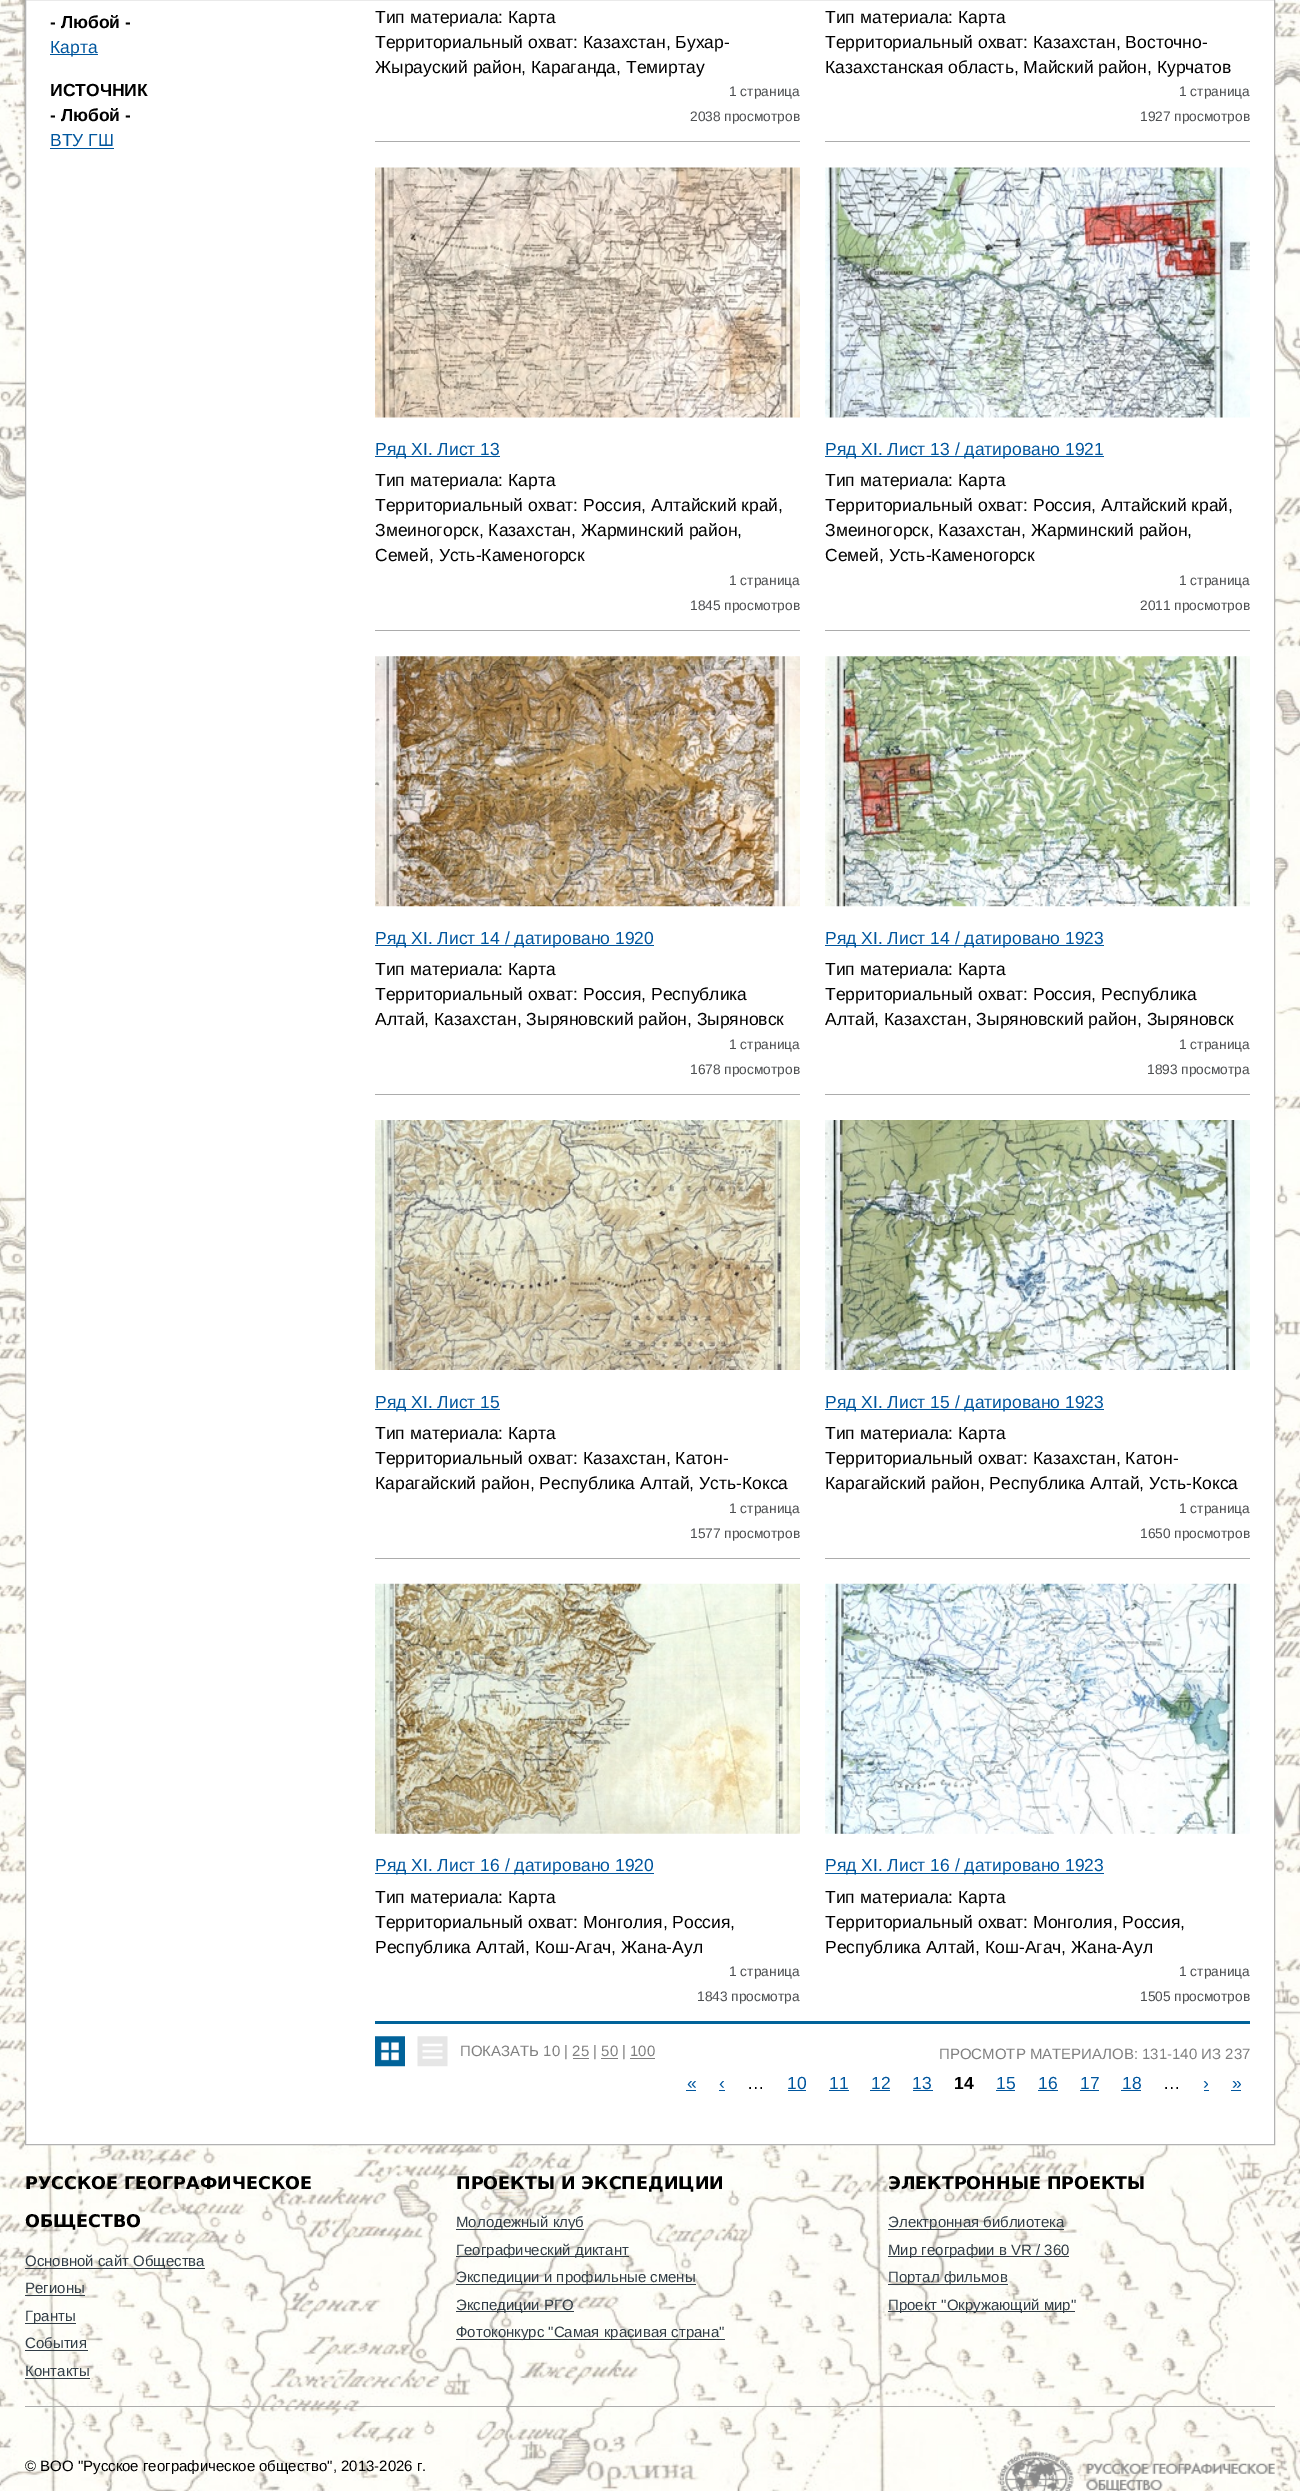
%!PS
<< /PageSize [1300 2491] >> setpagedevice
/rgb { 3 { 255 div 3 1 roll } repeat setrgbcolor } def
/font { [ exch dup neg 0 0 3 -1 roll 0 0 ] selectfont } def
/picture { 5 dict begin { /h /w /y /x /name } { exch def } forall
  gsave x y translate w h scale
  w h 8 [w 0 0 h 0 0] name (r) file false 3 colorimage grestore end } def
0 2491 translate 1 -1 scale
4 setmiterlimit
255 255 255 rgb
0 0 1300 2491 rectfill
(img/1.rgb) 0 0 1300 2491 picture
25.5 -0.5 moveto 1274.5 -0.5 lineto 1274.5 2144.5 lineto 25.5 2144.5 lineto closepath gsave fill grestore
178 178 178 rgb
stroke
[
  [50 54 48 1 0 86 158]
  [50 148 64 1 0 86 158]
  [375 2021 875 3 1 99 154]
  [375 141 425 1 172 172 172]
  [825 141 425 1 172 172 172]
  [375 630 425 1 172 172 172]
] { aload pop rgb rectfill } forall
(img/2.rgb) 375 167 425 251 picture
0 86 158 rgb
375 456 125 1 rectfill
172 172 172 rgb
825 630 425 1 rectfill
(img/3.rgb) 825 167 425 251 picture
0 86 158 rgb
825 456 279 1 rectfill
172 172 172 rgb
375 1094 425 1 rectfill
(img/4.rgb) 375 656 425 251 picture
0 86 158 rgb
375 945 279 1 rectfill
172 172 172 rgb
825 1094 425 1 rectfill
(img/5.rgb) 825 656 425 251 picture
0 86 158 rgb
825 945 279 1 rectfill
172 172 172 rgb
375 1558 425 1 rectfill
(img/6.rgb) 375 1120 425 250 picture
0 86 158 rgb
375 1409 125 1 rectfill
172 172 172 rgb
825 1558 425 1 rectfill
(img/7.rgb) 825 1120 425 250 picture
0 86 158 rgb
825 1409 279 1 rectfill
(img/8.rgb) 375 1583 425 251 picture
375 1873 279 1 rectfill
(img/9.rgb) 825 1583 425 251 picture
825 1873 279 1 rectfill
(img/10.rgb) 375 2036 30 31 picture
(img/11.rgb) 417 2036 31 31 picture
[
  [573 2058 16 1 128 128 128]
  [601 2058 17 1 128 128 128]
  [630 2058 25 1 128 128 128]
  [686 2090 10 1 0 86 158]
  [719 2090 6 1 0 86 158]
  [788 2090 18 1 0 86 158]
  [829 2090 20 1 0 86 158]
  [870 2090 20 1 0 86 158]
  [913 2090 20 1 0 86 158]
  [996 2090 19 1 0 86 158]
  [1038 2090 20 1 0 86 158]
  [1080 2090 19 1 0 86 158]
  [1121 2090 20 1 0 86 158]
  [1204 2090 5 1 0 86 158]
  [1231 2090 10 1 0 86 158]
  [25 2406 1250 1 172 172 172]
  [25 2268 180 1 50 61 70]
  [25 2295 60 1 50 61 70]
  [25 2323 51 1 50 61 70]
  [25 2350 63 1 50 61 70]
  [25 2378 65 1 50 61 70]
  [456 2229 128 1 50 61 70]
  [456 2256 173 1 50 61 70]
  [456 2284 240 1 50 61 70]
  [456 2311 118 1 50 61 70]
  [456 2339 269 1 50 61 70]
  [888 2229 176 1 50 61 70]
  [888 2256 181 1 50 61 70]
  [888 2284 120 1 50 61 70]
  [888 2311 187 1 50 61 70]
] { aload pop rgb rectfill } forall
(img/12.rgb) 998 2451 277 40 picture
/LiberationSans-Bold 17.5 font
0 0 0 rgb
50 28 moveto (- Любой -) show
/LiberationSans-Regular 17.5 font
0 86 158 rgb
50 53 moveto (Карта) show
/LiberationSans-Bold 17.5 font
0 0 0 rgb
50 96 moveto (ИСТОЧНИК) show
50 121 moveto (- Любой -) show
/LiberationSans-Regular 17.5 font
0 86 158 rgb
50 146 moveto (ВТУ ГШ) show
0 0 0 rgb
[
  [(Тип материала: Карта) 375 23]
  [(Территориальный охват: Казахстан, Бухар-) 375 48]
  [(Жырауский район, Караганда, Темиртау) 375 73]
] { aload pop moveto show } forall
/LiberationSans-Regular 13.75 font
77 79 81 rgb
729 96 moveto (1 страница) show
690 121 moveto (2038 просмотров) show
/LiberationSans-Regular 17.5 font
0 0 0 rgb
[
  [(Тип материала: Карта) 825 23]
  [(Территориальный охват: Казахстан, Восточно-) 825 48]
  [(Казахстанская область, Майский район, Курчатов) 825 73]
] { aload pop moveto show } forall
/LiberationSans-Regular 13.75 font
77 79 81 rgb
1179 96 moveto (1 страница) show
1140 121 moveto (1927 просмотров) show
/LiberationSans-Regular 17.5 font
0 86 158 rgb
375 455 moveto (Ряд XI. Лист 13) show
0 0 0 rgb
[
  [(Тип материала: Карта) 375 486]
  [(Территориальный охват: Россия, Алтайский край,) 375 511]
  [(Змеиногорск, Казахстан, Жарминский район,) 375 536]
  [(Семей, Усть-Каменогорск) 375 561]
] { aload pop moveto show } forall
/LiberationSans-Regular 13.75 font
77 79 81 rgb
729 585 moveto (1 страница) show
690 610 moveto (1845 просмотров) show
/LiberationSans-Regular 17.5 font
0 86 158 rgb
825 455 moveto (Ряд XI. Лист 13 / датировано 1921) show
0 0 0 rgb
[
  [(Тип материала: Карта) 825 486]
  [(Территориальный охват: Россия, Алтайский край,) 825 511]
  [(Змеиногорск, Казахстан, Жарминский район,) 825 536]
  [(Семей, Усть-Каменогорск) 825 561]
] { aload pop moveto show } forall
/LiberationSans-Regular 13.75 font
77 79 81 rgb
1179 585 moveto (1 страница) show
1140 610 moveto (2011 просмотров) show
/LiberationSans-Regular 17.5 font
0 86 158 rgb
375 944 moveto (Ряд XI. Лист 14 / датировано 1920) show
0 0 0 rgb
[
  [(Тип материала: Карта) 375 975]
  [(Территориальный охват: Россия, Республика) 375 1000]
  [(Алтай, Казахстан, Зыряновский район, Зыряновск) 375 1025]
] { aload pop moveto show } forall
/LiberationSans-Regular 13.75 font
77 79 81 rgb
729 1049 moveto (1 страница) show
690 1074 moveto (1678 просмотров) show
/LiberationSans-Regular 17.5 font
0 86 158 rgb
825 944 moveto (Ряд XI. Лист 14 / датировано 1923) show
0 0 0 rgb
[
  [(Тип материала: Карта) 825 975]
  [(Территориальный охват: Россия, Республика) 825 1000]
  [(Алтай, Казахстан, Зыряновский район, Зыряновск) 825 1025]
] { aload pop moveto show } forall
/LiberationSans-Regular 13.75 font
77 79 81 rgb
1179 1049 moveto (1 страница) show
1147 1074 moveto (1893 просмотра) show
/LiberationSans-Regular 17.5 font
0 86 158 rgb
375 1408 moveto (Ряд XI. Лист 15) show
0 0 0 rgb
[
  [(Тип материала: Карта) 375 1439]
  [(Территориальный охват: Казахстан, Катон-) 375 1464]
  [(Карагайский район, Республика Алтай, Усть-Кокса) 375 1489]
] { aload pop moveto show } forall
/LiberationSans-Regular 13.75 font
77 79 81 rgb
729 1513 moveto (1 страница) show
690 1538 moveto (1577 просмотров) show
/LiberationSans-Regular 17.5 font
0 86 158 rgb
825 1408 moveto (Ряд XI. Лист 15 / датировано 1923) show
0 0 0 rgb
[
  [(Тип материала: Карта) 825 1439]
  [(Территориальный охват: Казахстан, Катон-) 825 1464]
  [(Карагайский район, Республика Алтай, Усть-Кокса) 825 1489]
] { aload pop moveto show } forall
/LiberationSans-Regular 13.75 font
77 79 81 rgb
1179 1513 moveto (1 страница) show
1140 1538 moveto (1650 просмотров) show
/LiberationSans-Regular 17.5 font
0 86 158 rgb
375 1871 moveto (Ряд XI. Лист 16 / датировано 1920) show
0 0 0 rgb
[
  [(Тип материала: Карта) 375 1903]
  [(Территориальный охват: Монголия, Россия,) 375 1928]
  [(Республика Алтай, Кош-Агач, Жана-Аул) 375 1953]
] { aload pop moveto show } forall
/LiberationSans-Regular 13.75 font
77 79 81 rgb
729 1976 moveto (1 страница) show
697 2001 moveto (1843 просмотра) show
/LiberationSans-Regular 17.5 font
0 86 158 rgb
825 1871 moveto (Ряд XI. Лист 16 / датировано 1923) show
0 0 0 rgb
[
  [(Тип материала: Карта) 825 1903]
  [(Территориальный охват: Монголия, Россия,) 825 1928]
  [(Республика Алтай, Кош-Агач, Жана-Аул) 825 1953]
] { aload pop moveto show } forall
/LiberationSans-Regular 13.75 font
77 79 81 rgb
1179 1976 moveto (1 страница) show
1140 2001 moveto (1505 просмотров) show
/LiberationSans-Regular 15 font
128 128 128 rgb
460 2056 moveto (ПОКАЗАТЬ 10 | 25 | 50 | 100) show
939 2059 moveto (ПРОСМОТР МАТЕРИАЛОВ: 131-140 ИЗ 237) show
/LiberationSans-Regular 17.5 font
0 86 158 rgb
687 2089 moveto («) show
719 2089 moveto (‹) show
0 0 0 rgb
747 2089 moveto (…) show
0 86 158 rgb
[
  [(10) 787 2089]
  [(11) 829 2089]
  [(12) 871 2089]
  [(13) 912 2089]
] { aload pop moveto show } forall
/LiberationSans-Bold 17.5 font
0 0 0 rgb
954 2089 moveto (14) show
/LiberationSans-Regular 17.5 font
0 86 158 rgb
[
  [(15) 996 2089]
  [(16) 1038 2089]
  [(17) 1080 2089]
  [(18) 1122 2089]
] { aload pop moveto show } forall
0 0 0 rgb
1163 2089 moveto (…) show
0 86 158 rgb
1203 2089 moveto (›) show
1232 2089 moveto (») show
/DejaVuSans-Bold 17.5 font
0 0 0 rgb
25 2189 moveto (РУССКОЕ ГЕОГРАФИЧЕСКОЕ) show
25 2227 moveto (ОБЩЕСТВО) show
/LiberationSans-Regular 15 font
50 61 70 rgb
[
  [(Основной сайт Общества) 25 2266]
  [(Регионы) 25 2293]
  [(Гранты) 25 2321]
  [(События) 25 2348]
  [(Контакты) 25 2376]
] { aload pop moveto show } forall
/DejaVuSans-Bold 17.5 font
0 0 0 rgb
456 2189 moveto (ПРОЕКТЫ И ЭКСПЕДИЦИИ) show
/LiberationSans-Regular 15 font
50 61 70 rgb
[
  [(Молодежный клуб) 456 2227]
  [(Географический диктант) 456 2255]
  [(Экспедиции и профильные смены) 456 2282]
  [(Экспедиции РГО) 456 2310]
  [(Фотоконкурс "Самая красивая страна") 456 2337]
] { aload pop moveto show } forall
/DejaVuSans-Bold 17.5 font
0 0 0 rgb
888 2189 moveto (ЭЛЕКТРОННЫЕ ПРОЕКТЫ) show
/LiberationSans-Regular 15 font
50 61 70 rgb
[
  [(Электронная библиотека) 888 2227]
  [(Мир географии в VR / 360) 888 2255]
  [(Портал фильмов) 888 2282]
  [(Проект "Окружающий мир") 888 2310]
] { aload pop moveto show } forall
0 0 0 rgb
25 2471 moveto (© ВОО "Русское географическое общество", 2013-2026 г.) show
showpage
